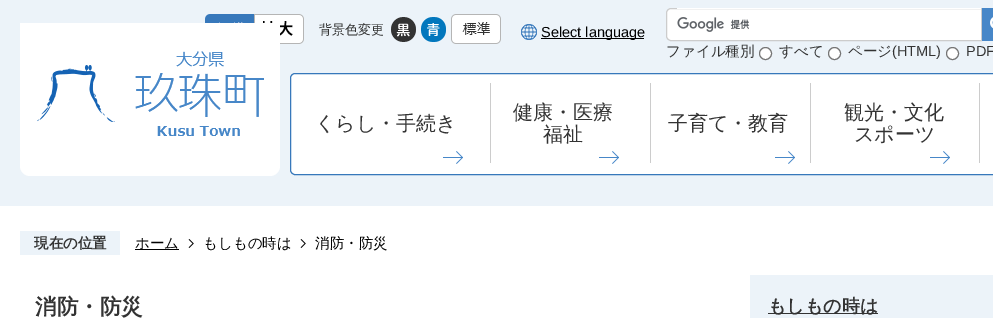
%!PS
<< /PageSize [993 318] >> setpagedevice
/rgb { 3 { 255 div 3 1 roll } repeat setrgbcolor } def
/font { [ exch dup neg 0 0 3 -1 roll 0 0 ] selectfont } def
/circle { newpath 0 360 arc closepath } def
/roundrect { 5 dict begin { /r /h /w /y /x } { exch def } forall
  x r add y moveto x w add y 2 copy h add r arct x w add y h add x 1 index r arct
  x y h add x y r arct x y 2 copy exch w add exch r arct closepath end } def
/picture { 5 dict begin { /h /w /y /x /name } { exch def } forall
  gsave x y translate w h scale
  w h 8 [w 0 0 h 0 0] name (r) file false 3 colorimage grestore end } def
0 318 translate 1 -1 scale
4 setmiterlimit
255 255 255 rgb
0 0 993 318 rectfill
236 243 249 rgb
0 0 993 206 rectfill
(img/1.rgb) 205 14 49 9 picture
(img/2.rgb) 254 14 50 30 picture
(img/3.rgb) 391 17 25 25 picture
(img/4.rgb) 421 17 25 25 picture
(img/5.rgb) 451 14 50 30 picture
(img/6.rgb) 521 24 16 16 picture
0 0 0 rgb
541 38 103 1 rectfill
255 255 255 rgb
671 8.5 moveto 981.5 8.5 lineto 981.5 40.5 lineto 671 40.5 lineto 668.5 40.5 666.5 38.5 666.5 36 curveto 666.5 13 lineto 666.5 10.5 668.5 8.5 671 8.5 curveto closepath gsave fill grestore
204 204 204 rgb
stroke
255 255 255 rgb
677 8 304 1 rectfill
(img/7.rgb) 677 17 73 15 picture
71 135 200 rgb
982 8 11 33 rectfill
(img/8.rgb) 990 17 3 12 picture
255 255 255 rgb
765.5 53.5 6 circle gsave fill grestore
118 118 118 rgb
stroke
255 255 255 rgb
834.5 53.5 6 circle gsave fill grestore
118 118 118 rgb
stroke
255 255 255 rgb
952.5 53.5 6 circle gsave fill grestore
118 118 118 rgb
stroke
255 255 255 rgb
20 23 moveto 280 23 lineto 280 166 lineto 280 171.5 275.5 176 270 176 curveto 30 176 lineto 24.5 176 20 171.5 20 166 curveto closepath fill
(img/9.rgb) 37 51 227 85 picture
290.5 73.5 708 101 4.5 roundrect gsave fill grestore
55 120 187 rgb
stroke
(img/10.rgb) 443 151 20 13 picture
204 204 204 rgb
490 83 1 80 rectfill
(img/10.rgb) 599 151 20 13 picture
650 83 1 80 rectfill
(img/10.rgb) 775 151 20 13 picture
810 83 1 80 rectfill
(img/10.rgb) 930 151 20 13 picture
[
  [979 83 1 80 204 204 204]
  [20 231 100 24 236 243 249]
  [135 249 44 1 0 0 0]
] { aload pop rgb rectfill } forall
(img/11.rgb) 188 239 6 9 picture
(img/11.rgb) 300 239 6 9 picture
236 243 249 rgb
750 275 243 43 rectfill
51 51 51 rgb
768 313 110 1 rectfill
/WenQuanYiZenHei-Medium 13 font
319 34 moveto (背景色変更) show
/LiberationSans-Regular 14.5 font
0 0 0 rgb
541 37 moveto (Select language) show
/WenQuanYiZenHei-Medium 14.5 font
51 51 51 rgb
[
  [(ファイル種別) 666 56]
  [(すべて) 779 56]
  [(ページ) 848 56]
] { aload pop moveto show } forall
/LiberationSans-Regular 14.5 font
892 56 moveto (\(HTML\)) show
966 56 moveto (PDF) show
/WenQuanYiZenHei-Medium 20 font
[
  [(くらし・手続き) 315 130]
  [(健康・医療) 513 119]
  [(福祉) 543 141]
  [(子育て・教育) 668 130]
  [(観光・文化) 844 119]
  [(スポーツ) 854 141]
] { aload pop moveto show } forall
/WenQuanYiZenHei-Bold 14.5 font
34 248 moveto (現在の位置) show
/WenQuanYiZenHei-Medium 14.5 font
0 0 0 rgb
[
  [(ホーム) 135 248]
  [(もしもの時は) 203 248]
  [(消防・防災) 315 248]
] { aload pop moveto show } forall
/WenQuanYiZenHei-Bold 21.5 font
51 51 51 rgb
35 314 moveto (消防・防災) show
/WenQuanYiZenHei-Bold 18 font
768 312 moveto (もしもの時は) show
showpage
